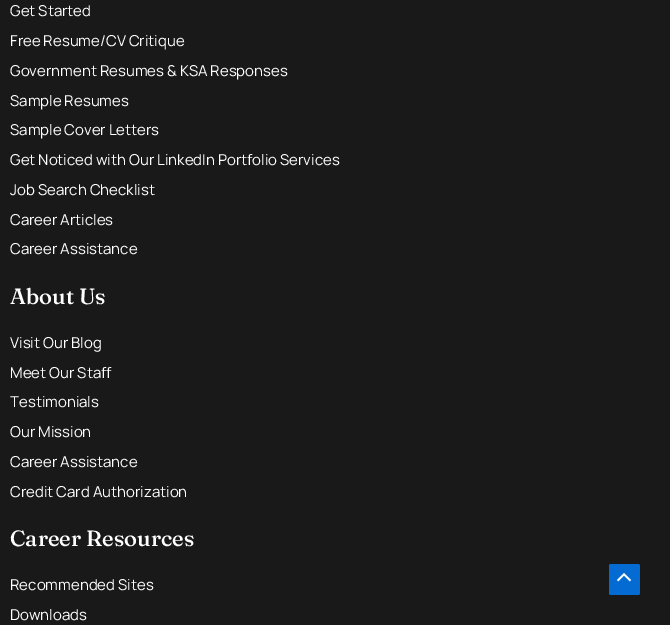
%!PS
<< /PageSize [670 625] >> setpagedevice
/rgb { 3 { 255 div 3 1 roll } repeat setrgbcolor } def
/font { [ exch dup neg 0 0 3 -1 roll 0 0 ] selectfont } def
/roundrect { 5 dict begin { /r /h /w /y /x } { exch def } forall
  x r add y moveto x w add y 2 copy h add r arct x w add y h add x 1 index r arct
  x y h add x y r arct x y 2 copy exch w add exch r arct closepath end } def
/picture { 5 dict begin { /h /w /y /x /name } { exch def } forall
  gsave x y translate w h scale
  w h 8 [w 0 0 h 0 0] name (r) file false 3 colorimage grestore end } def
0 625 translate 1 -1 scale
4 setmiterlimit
25 25 25 rgb
0 0 670 625 rectfill
4 107 210 rgb
609 564 31 31 2 roundrect fill
(img/1.rgb) 617 573 15 9 picture
/Manrope-Regular 15 font
255 255 255 rgb
[
  [(Get Started) 10 16]
  [(Free Resume/CV Critique) 10 46]
  [(Government Resumes & KSA Responses) 10 76]
  [(Sample Resumes) 10 106]
  [(Sample Cover Letters) 10 135]
  [(Get Noticed with Our LinkedIn Portfolio Services) 10 165]
  [(Job Search Checklist) 10 195]
  [(Career Articles) 10 225]
  [(Career Assistance) 10 254]
] { aload pop moveto show } forall
/Fraunces-Medium 22 font
10 304 moveto (About Us) show
/Manrope-Regular 15 font
[
  [(Visit Our Blog) 10 348]
  [(Meet Our Staff) 10 378]
  [(Testimonials) 10 407]
  [(Our Mission) 10 437]
  [(Career Assistance) 10 467]
  [(Credit Card Authorization) 10 497]
] { aload pop moveto show } forall
/Fraunces-Medium 22 font
10 546 moveto (Career Resources) show
/Manrope-Regular 15 font
10 590 moveto (Recommended Sites) show
10 620 moveto (Downloads) show
showpage
